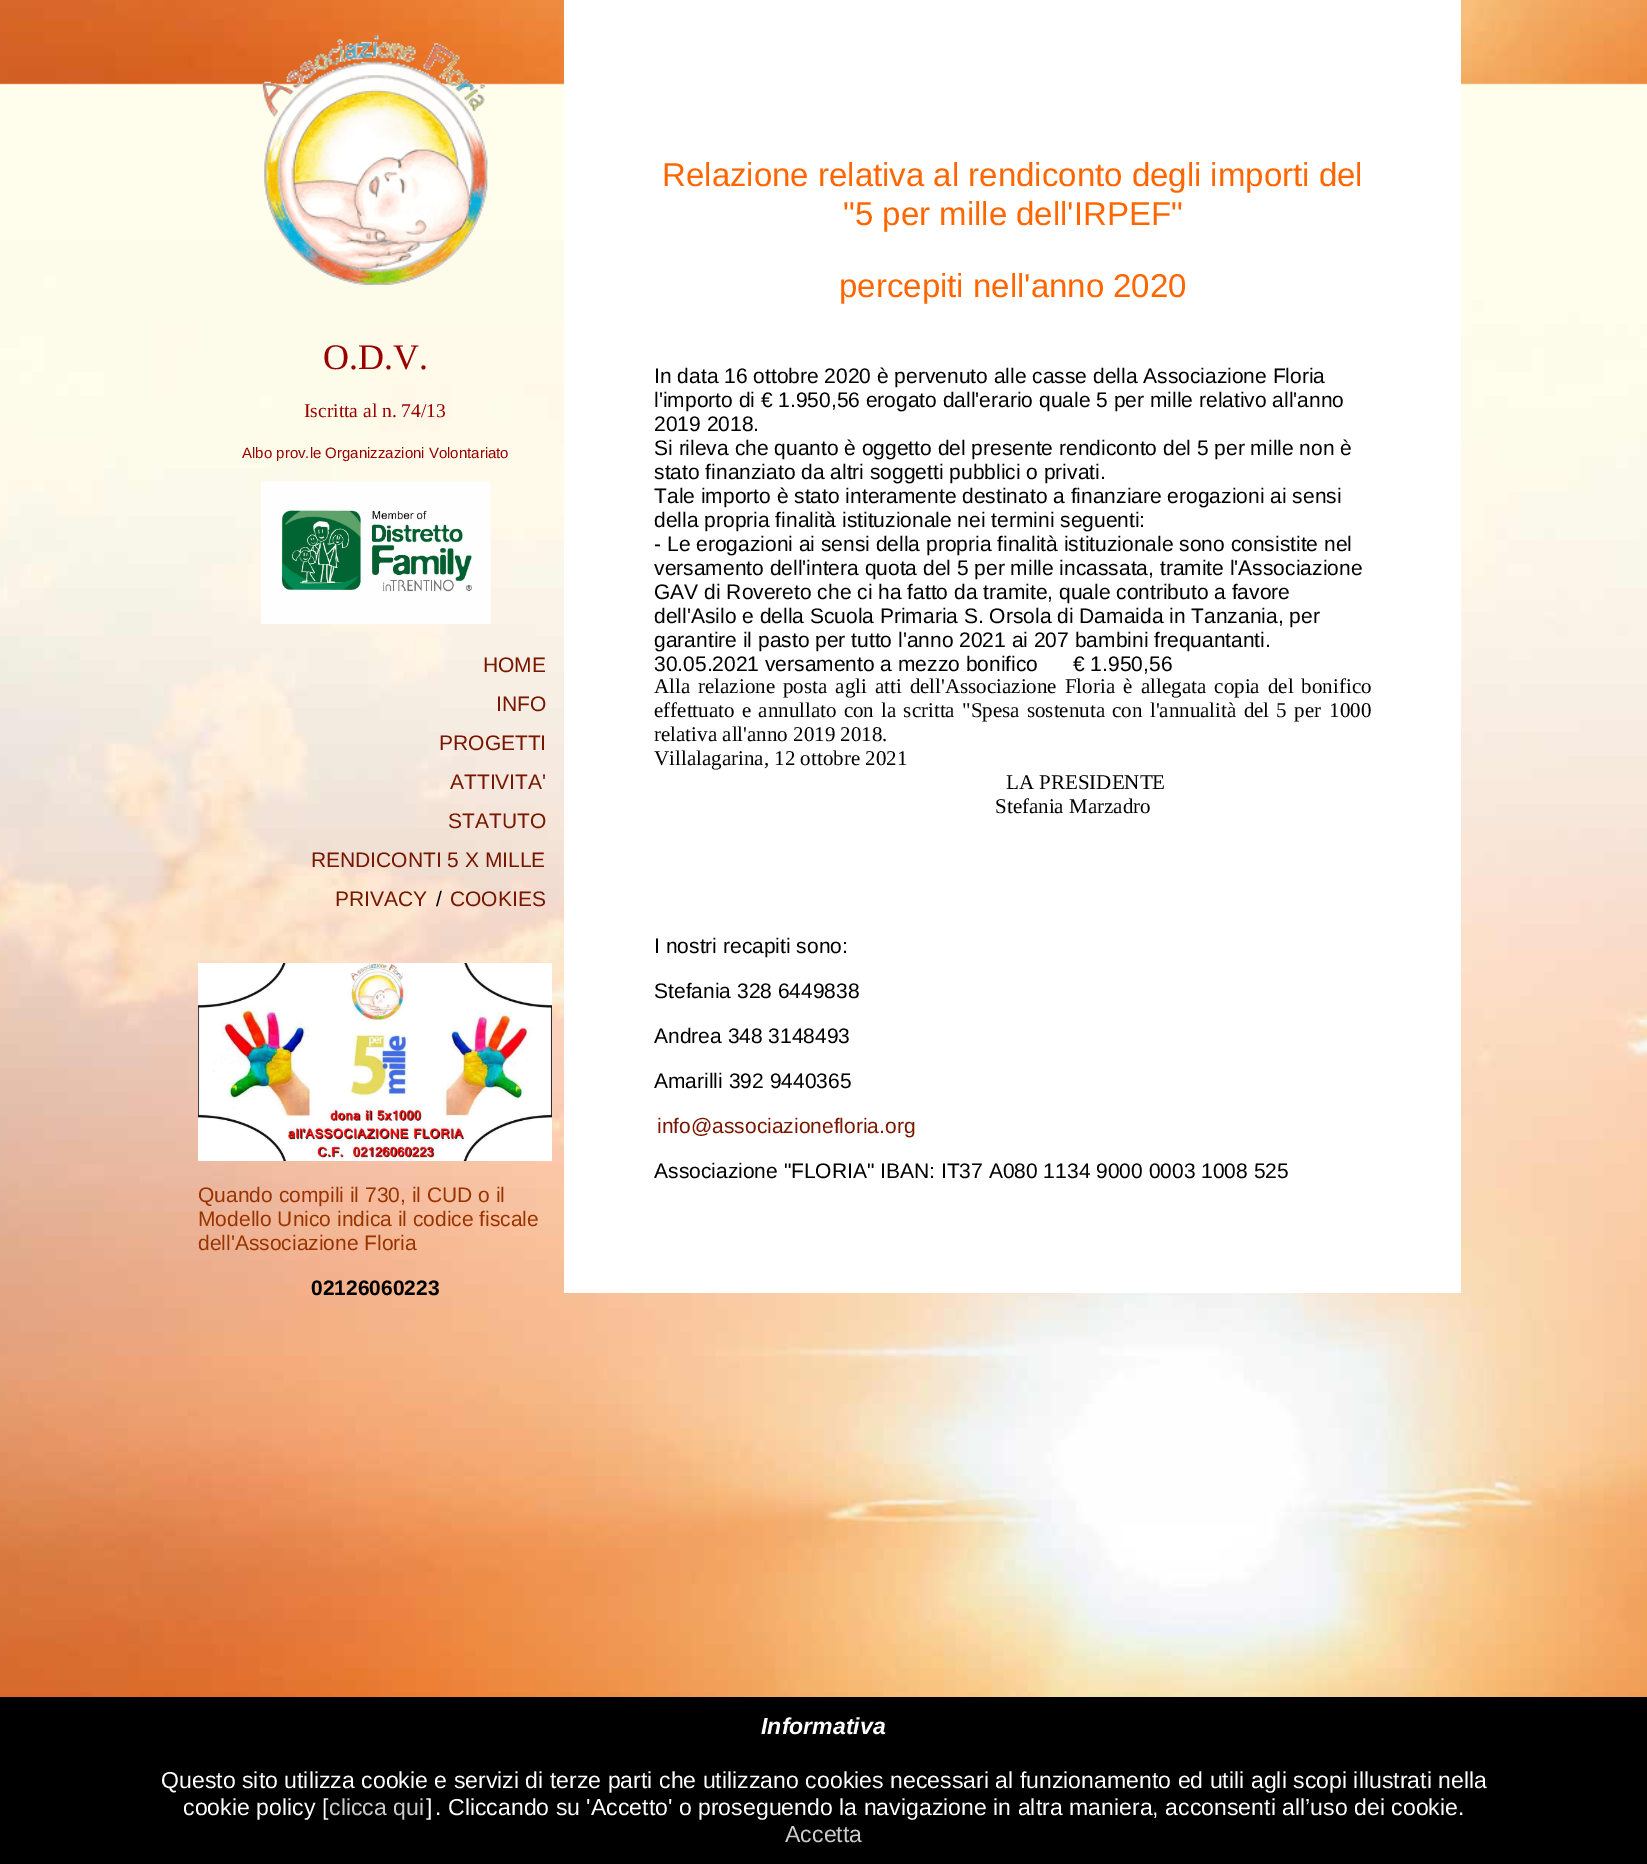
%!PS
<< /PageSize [1647 1864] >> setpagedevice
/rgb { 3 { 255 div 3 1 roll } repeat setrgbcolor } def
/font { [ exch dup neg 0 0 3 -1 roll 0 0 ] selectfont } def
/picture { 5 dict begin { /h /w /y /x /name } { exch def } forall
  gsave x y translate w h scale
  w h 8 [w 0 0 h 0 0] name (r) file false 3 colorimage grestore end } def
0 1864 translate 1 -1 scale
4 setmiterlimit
255 255 255 rgb
0 0 1647 1864 rectfill
(img/1.rgb) 0 0 1647 1697 picture
564 0 897 1293 rectfill
(img/2.rgb) 262 35 226 251 picture
(img/3.rgb) 261 481 230 143 picture
0 0 0 rgb
0 1697 1647 167 rectfill
(img/4.rgb) 198 963 354 198 picture
/LiberationSans-Regular 33 font
255 102 0 rgb
[
  [(Relazione relativa al rendiconto degli importi del) 662 186]
  [("5 per mille dell'IRPEF") 843 225]
  [(percepiti nell'anno 2020) 839 297]
] { aload pop moveto show } forall
/LiberationSans-Regular 21 font
0 0 0 rgb
[
  [(In data 16 ottobre 2020 è pervenuto alle casse della Associazione Floria) 654 383]
  [(l'importo di € 1.950,56 erogato dall'erario quale 5 per mille relativo all'anno) 654 407]
  [(2019 2018.) 654 431]
  [(Si rileva che quanto è oggetto del presente rendiconto del 5 per mille non è) 654 455]
  [(stato finanziato da altri soggetti pubblici o privati.) 654 479]
  [(Tale importo è stato interamente destinato a finanziare erogazioni ai sensi) 654 503]
  [(della propria finalità istituzionale nei termini seguenti:) 654 527]
  [(- Le erogazioni ai sensi della propria finalità istituzionale sono consistite nel) 654 551]
  [(versamento dell'intera quota del 5 per mille incassata, tramite l'Associazione) 654 575]
  [(GAV di Rovereto che ci ha fatto da tramite, quale contributo a favore) 654 599]
  [(dell'Asilo e della Scuola Primaria S. Orsola di Damaida in Tanzania, per) 654 623]
  [(garantire il pasto per tutto l'anno 2021 ai 207 bambini frequantanti.) 654 647]
  [(30.05.2021 versamento a mezzo bonifico      € 1.950,56) 654 671]
] { aload pop moveto show } forall
/LiberationSerif-Regular 21 font
654 693 moveto (Alla) show
698 693 moveto 2.75 0 32 (relazione posta agli atti dell'Associazione Floria è) widthshow
1141 693 moveto 2.75 0 32 (allegata copia del bonifico) widthshow
654 717 moveto 2 0 32 (effettuato e annullato con) widthshow
881 717 moveto 2 0 32 (la scritta "Spesa sostenuta con l'annualità del 5 per) widthshow
[
  [(1000) 1329 717]
  [(relativa all'anno 2019 2018.) 654 741]
  [(Villalagarina, 12 ottobre 2021) 654 765]
  [(LA PRESIDENTE) 1006 789]
  [(Stefania Marzadro) 995 813]
] { aload pop moveto show } forall
/LiberationSans-Regular 21 font
[
  [(I nostri recapiti sono:) 654 953]
  [(Stefania 328 6449838) 654 998]
  [(Andrea 348 3148493) 654 1043]
  [(Amarilli 392 9440365) 654 1088]
] { aload pop moveto show } forall
119 23 0 rgb
657 1133 moveto (info@associazionefloria.org) show
0 0 0 rgb
654 1178 moveto (Associazione "FLORIA" IBAN: IT37 A080 1134 9000 0003 1008 525) show
/LiberationSerif-Regular 36 font
153 0 0 rgb
323 369 moveto (O.D.V.) show
/LiberationSerif-Regular 19.5 font
304 417 moveto (Iscritta al n. 74/13) show
/LiberationSans-Regular 15 font
242 458 moveto (Albo prov.le Organizzazioni Volontariato) show
/LiberationSans-Regular 21 font
119 23 0 rgb
[
  [(HOME) 483 672]
  [(INFO) 496 711]
  [(PROGETTI) 439 750]
  [(ATTIVITA') 450 789]
  [(STATUTO) 448 828]
  [(RENDICONTI 5 X MILLE) 311 867]
  [(PRIVACY) 335 906]
] { aload pop moveto show } forall
0 0 0 rgb
436 906 moveto (/) show
119 23 0 rgb
450 906 moveto (COOKIES) show
/LiberationSans-BoldItalic 23.1 font
255 255 255 rgb
761 1734 moveto (Informativa) show
/LiberationSans-Regular 23.1 font
[
  [(Questo sito utilizza cookie e servizi di terze parti che utilizzano cookies) 161 1788]
  [(necessari al funzionamento ed utili agli scopi illustrati nella) 890 1788]
  [(cookie policy [) 183 1815]
] { aload pop moveto show } forall
204 204 204 rgb
329 1815 moveto (clicca qui) show
255 255 255 rgb
426 1815 moveto (]) show
435 1815 moveto (. Cliccando su 'Accetto' o proseguendo la navigazione in altra maniera, acconsenti all’uso dei cookie.) show
204 204 204 rgb
785 1842 moveto (Accetta) show
/LiberationSans-Regular 21 font
153 51 0 rgb
[
  [(Quando compili il 730, il CUD o il) 198 1202]
  [(Modello Unico indica il codice fiscale) 198 1226]
  [(dell'Associazione Floria) 198 1250]
] { aload pop moveto show } forall
/LiberationSans-Bold 21 font
0 0 0 rgb
311 1295 moveto (02126060223) show
showpage
